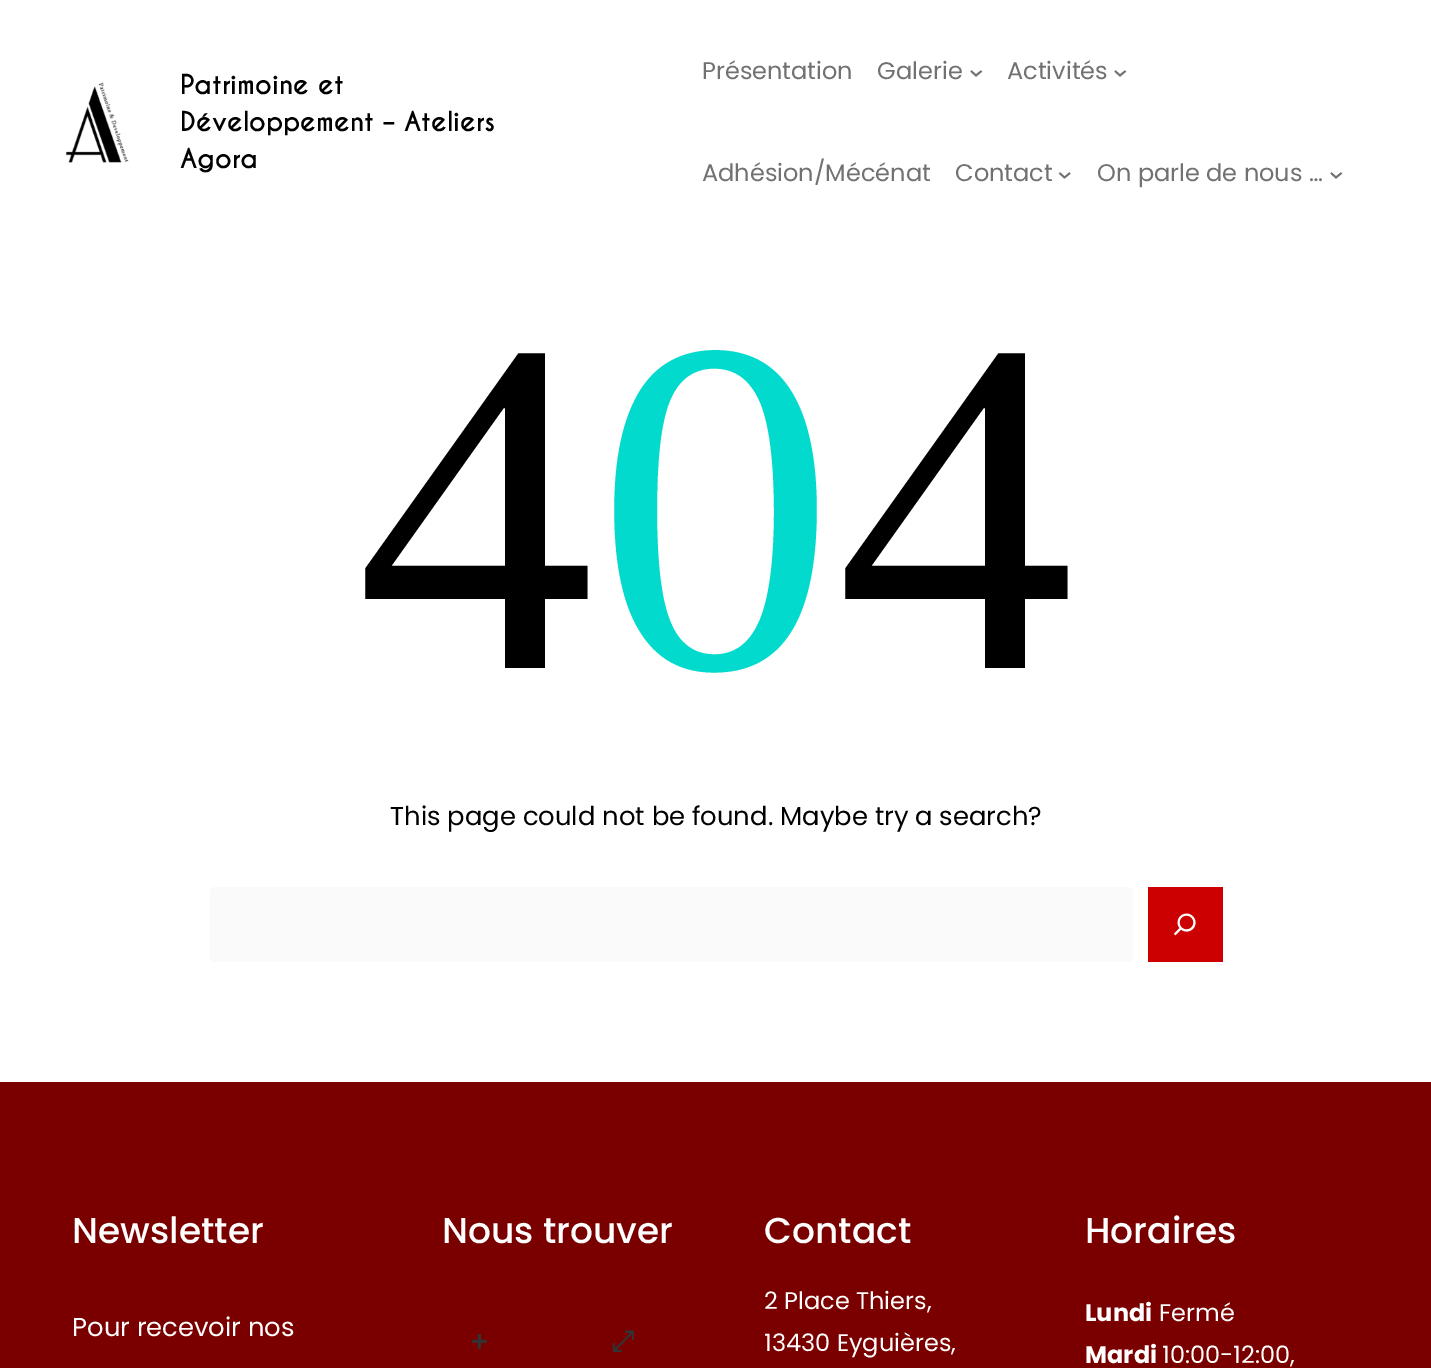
%!PS
<< /PageSize [1431 1368] >> setpagedevice
/rgb { 3 { 255 div 3 1 roll } repeat setrgbcolor } def
/font { [ exch dup neg 0 0 3 -1 roll 0 0 ] selectfont } def
/roundrect { 5 dict begin { /r /h /w /y /x } { exch def } forall
  x r add y moveto x w add y 2 copy h add r arct x w add y h add x 1 index r arct
  x y h add x y r arct x y 2 copy exch w add exch r arct closepath end } def
/picture { 5 dict begin { /h /w /y /x /name } { exch def } forall
  gsave x y translate w h scale
  w h 8 [w 0 0 h 0 0] name (r) file false 3 colorimage grestore end } def
0 1368 translate 1 -1 scale
4 setmiterlimit
255 255 255 rgb
0 0 1431 1368 rectfill
(img/1.rgb) 65 82 64 81 picture
113 113 113 rgb
1.8 setlinewidth
971 71 moveto 976 75.5 lineto 981.5 71 lineto stroke
1115 71 moveto 1120 75.5 lineto 1125.5 71 lineto stroke
1059.5 173 moveto 1064.5 177.5 lineto 1070 173 lineto stroke
1331 173 moveto 1336 177.5 lineto 1341.5 173 lineto stroke
250 250 250 rgb
210 887 923 75 5 roundrect fill
204 0 0 rgb
1148 887 75 75 rectfill
(img/2.rgb) 1173 913 23 23 picture
122 0 0 rgb
0 1082 1431 286 rectfill
/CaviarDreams-Bold 25.85 font
0 0 0 rgb
[
  [(Patrimoine et) 180 94]
  [(Développement – Ateliers) 180 131]
  [(Agora) 180 168]
] { aload pop moveto show } forall
/Poppins-Regular 24 font
113 113 113 rgb
[
  [(Présentation) 702 79]
  [(Galerie) 877 79]
  [(Activités) 1007 79]
  [(Adhésion/Mécénat) 702 181]
  [(Contact) 955 181]
  [(On parle de nous …) 1097 181]
] { aload pop moveto show } forall
/LiberationSerif-Regular 480 font
0 0 0 rgb
356 668 moveto (4) show
1 218 204 rgb
596 668 moveto (0) show
0 0 0 rgb
836 668 moveto (4) show
/Poppins-Regular 25.85 font
390 825 moveto (This page could not be found. Maybe try a search?) show
/Poppins-Medium 36 font
255 255 255 rgb
72 1243 moveto (Newsletter) show
/Poppins-Regular 25.85 font
72 1336 moveto (Pour recevoir nos) show
/Poppins-Medium 36 font
442 1243 moveto (Nous trouver) show
/LiberationSans-Bold 29 font
51 51 51 rgb
471 1351 moveto (+) show
/FreeSerif-Bold 29 font
611 1351 moveto (⤢) show
/Poppins-Medium 36 font
255 255 255 rgb
764 1243 moveto (Contact) show
/Poppins-Regular 24 font
764 1309 moveto (2 Place Thiers,) show
764 1351 moveto (13430 Eyguières,) show
/Poppins-Medium 36 font
1085 1243 moveto (Horaires) show
/Poppins-Bold 24 font
1085 1321 moveto (Lundi) show
/Poppins-Regular 24 font
1159 1321 moveto (Fermé) show
/Poppins-Bold 24 font
1085 1363 moveto (Mardi) show
/Poppins-Regular 24 font
1162 1363 moveto (10:00-12:00,) show
showpage
